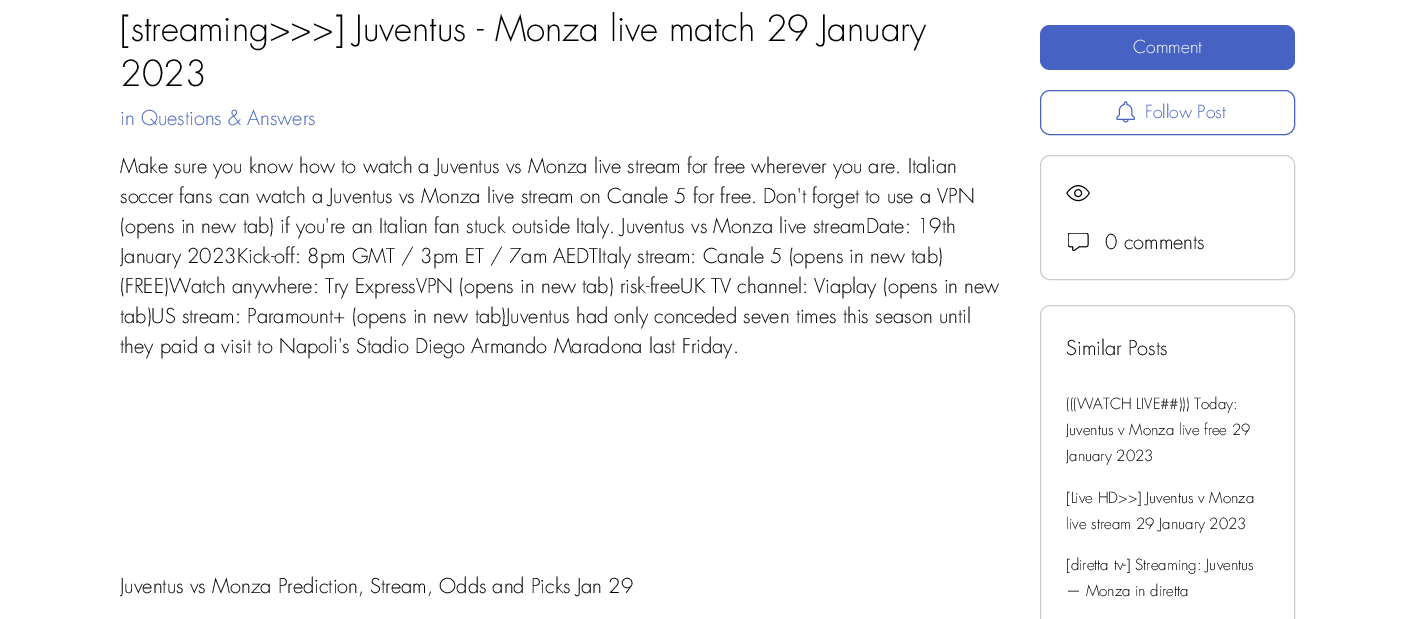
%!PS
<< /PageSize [1414 619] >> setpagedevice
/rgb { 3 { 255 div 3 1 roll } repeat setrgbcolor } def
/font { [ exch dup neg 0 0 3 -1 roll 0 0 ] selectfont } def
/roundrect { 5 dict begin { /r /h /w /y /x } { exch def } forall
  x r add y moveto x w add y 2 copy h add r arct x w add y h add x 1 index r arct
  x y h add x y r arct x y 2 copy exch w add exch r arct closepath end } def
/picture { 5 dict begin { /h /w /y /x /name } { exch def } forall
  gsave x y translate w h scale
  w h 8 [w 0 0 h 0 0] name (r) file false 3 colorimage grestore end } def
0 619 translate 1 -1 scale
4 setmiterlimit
255 255 255 rgb
0 0 1414 619 rectfill
70 98 194 rgb
1040 25 255 45 10 roundrect fill
1040.5 90.5 254 44 9.5 roundrect stroke
(img/1.rgb) 1116 101 19 22 picture
204 204 204 rgb
1040.5 155.5 254 124 9.5 roundrect stroke
(img/2.rgb) 1066 185 24 17 picture
(img/3.rgb) 1068 233 21 18 picture
1040.5 305.5 254 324 9.5 roundrect stroke
/futura-Light 35 font
0 0 0 rgb
120 41 moveto ([streaming>>>] Juventus - Monza live match 29 January) show
120 86 moveto (2023) show
/futura-Light 20 font
70 98 194 rgb
120 125 moveto (in Questions & Answers) show
0 0 0 rgb
[
  [(Make sure you know how to watch a Juventus vs Monza live stream for free wherever you are. Italian) 120 173]
  [(soccer fans can watch a Juventus vs Monza live stream on Canale 5 for free. Don't forget to use a VPN) 120 203]
  [(\(opens in new tab\) if you're an Italian fan stuck outside Italy. Juventus vs Monza live streamDate: 19th) 120 233]
] { aload pop moveto show } forall
gsave
120 151 880 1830 rectclip
120 263 moveto (January 2023Kick-off: 8pm GMT / 3pm ET / 7am AEDTItaly stream: Canale 5 \(opens in new tab\)) show
grestore
[
  [(\(FREE\)Watch anywhere: Try ExpressVPN \(opens in new tab\) risk-freeUK TV channel: Viaplay \(opens in new) 120 293]
  [(tab\)US stream: Paramount+ \(opens in new tab\)Juventus had only conceded seven times this season until) 120 323]
  [(they paid a visit to Napoli's Stadio Diego Armando Maradona last Friday.) 120 353]
] { aload pop moveto show } forall
gsave
120 151 880 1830 rectclip
120 593 moveto (Juventus vs Monza Prediction, Stream, Odds and Picks Jan 29) show
grestore
/futura-Light 17.5 font
255 255 255 rgb
1133 53 moveto (Comment) show
70 98 194 rgb
1145 118 moveto (Follow Post) show
/futura-Light 20 font
0 0 0 rgb
1105 249 moveto (0 comments) show
1066 355 moveto (Similar Posts) show
/futura-Light 15 font
1066 409 moveto (\(\(\(WATCH LIVE##\)\)\) Today:) show
gsave
1066 391 203 79 rectclip
1066 435 moveto (Juventus v Monza live free 29) show
1066 461 moveto (January 2023) show
grestore
[
  [([Live HD>>] Juventus v Monza) 1066 503]
  [(live stream 29 January 2023) 1066 529]
  [([diretta tv-] Streaming: Juventus) 1066 570]
  [(— Monza in diretta) 1066 596]
] { aload pop moveto show } forall
showpage
